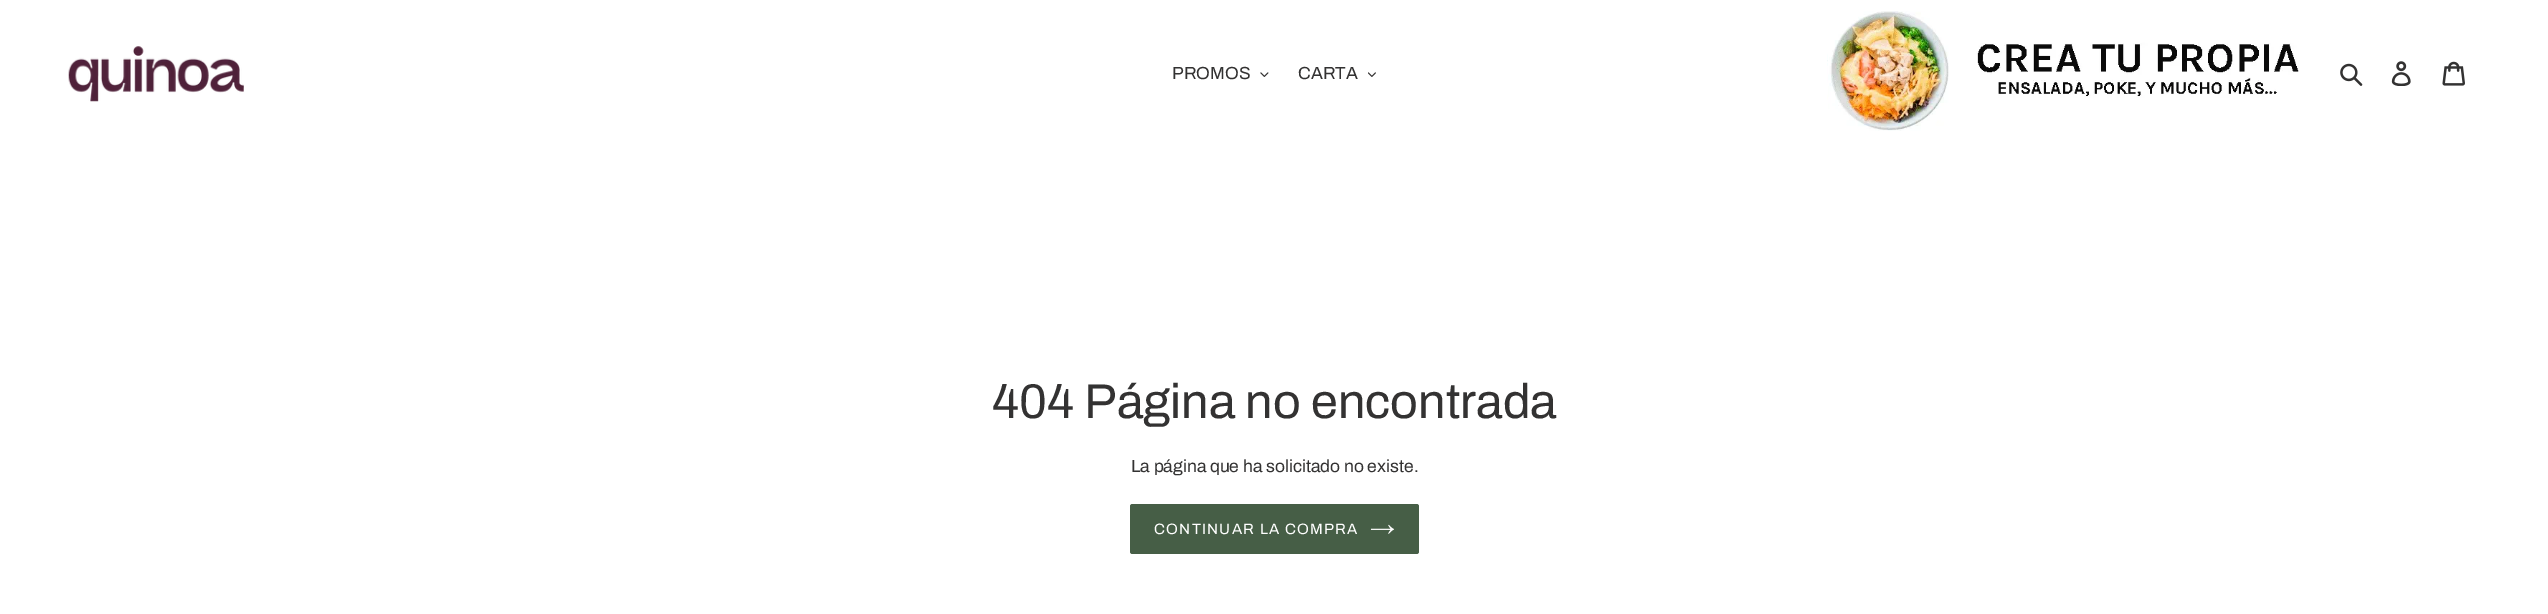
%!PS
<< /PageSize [2548 614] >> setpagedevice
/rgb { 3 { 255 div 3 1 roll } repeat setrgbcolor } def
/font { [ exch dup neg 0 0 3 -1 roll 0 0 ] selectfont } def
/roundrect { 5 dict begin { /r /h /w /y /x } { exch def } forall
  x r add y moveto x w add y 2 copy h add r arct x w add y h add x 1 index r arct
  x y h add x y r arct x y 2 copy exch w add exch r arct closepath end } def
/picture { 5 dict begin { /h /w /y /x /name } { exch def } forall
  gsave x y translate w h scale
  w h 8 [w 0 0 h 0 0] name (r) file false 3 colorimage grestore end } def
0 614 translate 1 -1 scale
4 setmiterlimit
255 255 255 rgb
0 0 2548 614 rectfill
(img/1.rgb) 68 46 176 56 picture
(img/2.rgb) 1260 72 9 5 picture
(img/3.rgb) 1368 72 8 5 picture
(img/4.rgb) 1827 11 472 120 picture
(img/5.rgb) 2340 63 23 23 picture
(img/6.rgb) 2391 61 20 25 picture
(img/7.rgb) 2442 61 23 25 picture
70 94 70 rgb
1130 504 289 50 2.5 roundrect fill
(img/8.rgb) 1370 524 24 10 picture
/Archivo-Regular 17.5 font
51 50 50 rgb
1172 79 moveto (PROMOS) show
1298 79 moveto (CARTA) show
/Archivo-Regular 48.75 font
992 418 moveto (404 Página no encontrada) show
/Archivo-Regular 17.5 font
1131 472 moveto (La página que ha solicitado no existe.) show
/Archivo-Regular 15 font
255 255 255 rgb
1154 534 moveto 1.25 0 (CONTINUAR LA COMPRA) ashow
showpage
